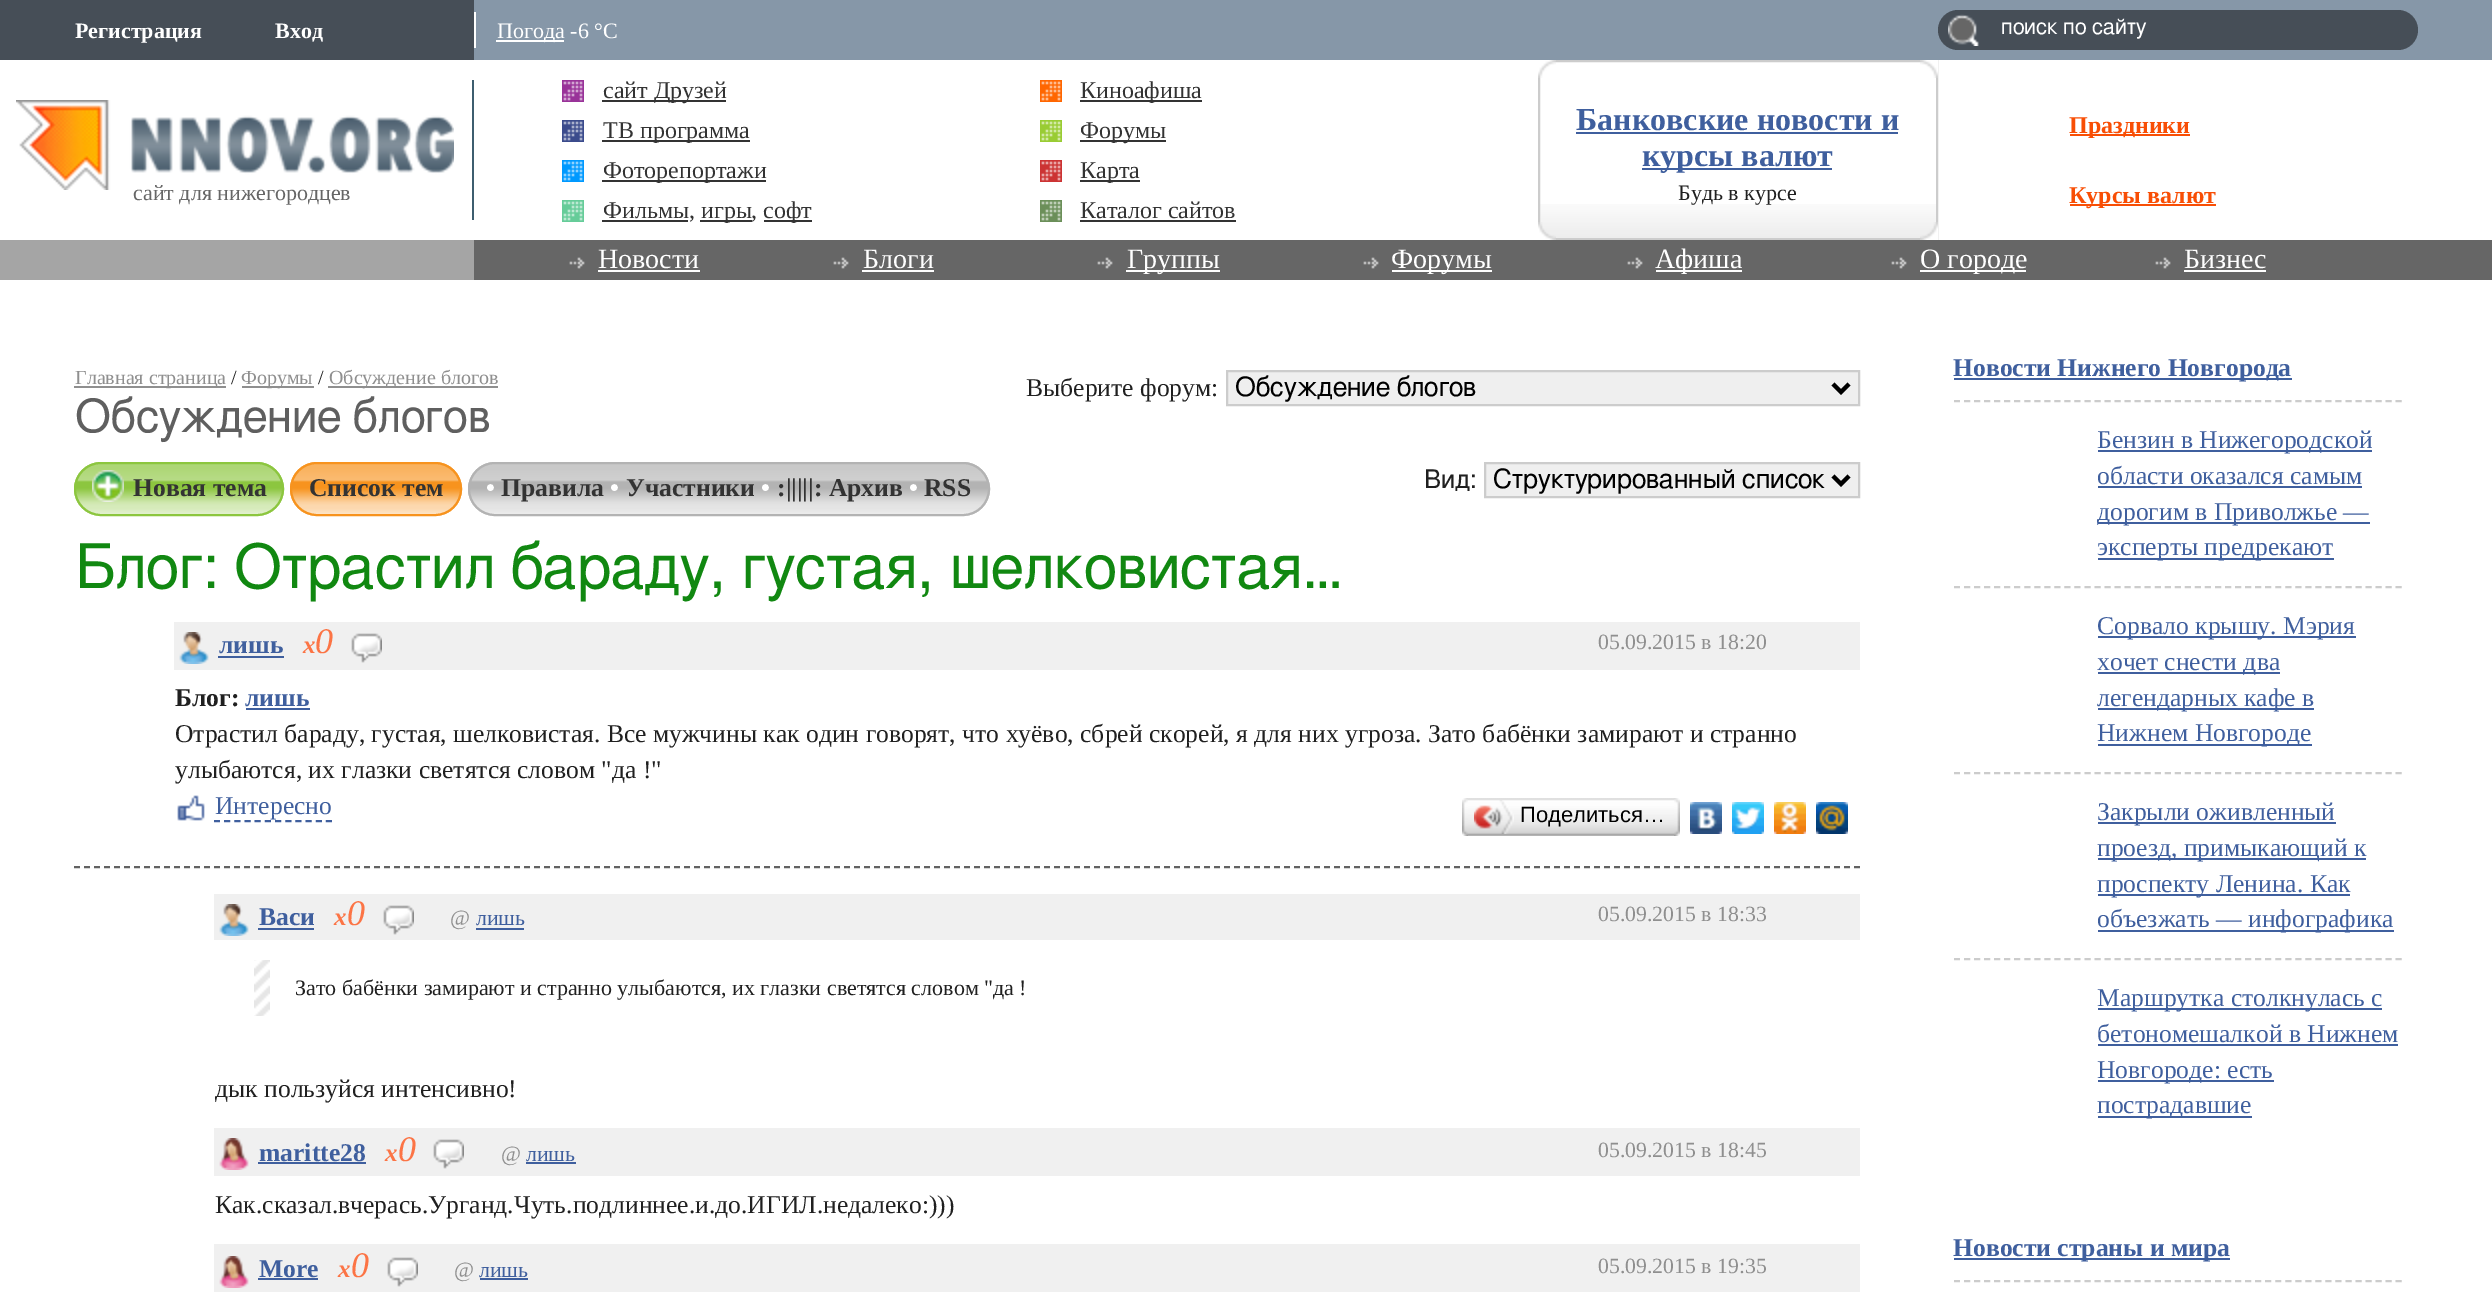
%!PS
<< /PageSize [2492 1295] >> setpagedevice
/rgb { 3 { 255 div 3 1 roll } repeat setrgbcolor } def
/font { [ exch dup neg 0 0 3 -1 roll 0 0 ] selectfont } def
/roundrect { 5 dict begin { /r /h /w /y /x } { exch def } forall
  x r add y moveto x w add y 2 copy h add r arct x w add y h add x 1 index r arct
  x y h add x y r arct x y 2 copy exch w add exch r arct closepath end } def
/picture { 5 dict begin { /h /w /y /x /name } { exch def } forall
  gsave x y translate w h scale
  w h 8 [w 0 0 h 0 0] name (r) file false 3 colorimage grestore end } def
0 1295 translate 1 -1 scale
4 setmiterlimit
255 255 255 rgb
0 0 2492 1295 rectfill
[
  [474 0 2018 60 134 151 168]
  [0 0 474 60 70 78 87]
  [474 12 2 36 255 255 255]
  [496 40 68 2 255 255 255]
] { aload pop rgb rectfill } forall
70 78 87 rgb
1938 10 480 40 20 roundrect fill
(img/1.rgb) 1948 14 31 32 picture
(img/2.rgb) 16 100 438 90 picture
61 94 111 rgb
472 80 2 140 rectfill
153 51 153 rgb
562 80 22 22 rectfill
(img/3.rgb) 563 81 20 20 picture
51 51 51 rgb
602 100 124 2 rectfill
255 102 0 rgb
1040 80 22 22 rectfill
(img/4.rgb) 1041 81 20 20 picture
51 51 51 rgb
1080 100 122 2 rectfill
59 75 140 rgb
562 120 22 22 rectfill
(img/5.rgb) 563 121 20 20 picture
51 51 51 rgb
602 140 148 2 rectfill
153 204 51 rgb
1040 120 22 22 rectfill
(img/6.rgb) 1041 121 20 20 picture
51 51 51 rgb
1080 140 86 2 rectfill
0 153 255 rgb
562 160 22 22 rectfill
(img/7.rgb) 563 161 20 20 picture
51 51 51 rgb
602 180 164 2 rectfill
204 51 51 rgb
1040 160 22 22 rectfill
(img/8.rgb) 1041 161 20 20 picture
51 51 51 rgb
1080 180 60 2 rectfill
102 204 153 rgb
562 200 22 22 rectfill
(img/9.rgb) 563 201 20 20 picture
[
  [602 220 86 2 51 51 51]
  [700 220 52 2 51 51 51]
  [764 220 48 2 51 51 51]
  [1040 200 22 22 107 143 89]
] { aload pop rgb rectfill } forall
(img/10.rgb) 1041 201 20 20 picture
51 51 51 rgb
1080 220 156 2 rectfill
(img/11.rgb) 1540 204 396 34 picture
204 204 204 rgb
2 setlinewidth
1539 61 398 178 rectstroke
(img/12.rgb) 1538 60 18 18 picture
(img/13.rgb) 1920 60 18 18 picture
63 95 158 rgb
1576 132 322 2 rectfill
1642 168 190 2 rectfill
(img/14.rgb) 1538 222 18 18 picture
(img/15.rgb) 1920 222 18 18 picture
[
  [2070 134 120 2 248 78 5]
  [2070 204 146 2 248 78 5]
  [474 240 2018 40 102 102 102]
  [0 240 474 40 165 165 165]
] { aload pop rgb rectfill } forall
(img/16.rgb) 569 257 16 12 picture
255 255 255 rgb
598 270 102 2 rectfill
(img/16.rgb) 833 257 16 12 picture
862 270 72 2 rectfill
(img/16.rgb) 1097 257 16 12 picture
1126 270 94 2 rectfill
(img/16.rgb) 1363 257 16 12 picture
1392 270 100 2 rectfill
(img/16.rgb) 1627 257 16 12 picture
1656 270 86 2 rectfill
(img/16.rgb) 1891 257 16 12 picture
1920 270 106 2 rectfill
(img/16.rgb) 2155 257 16 12 picture
[
  [2184 270 82 2 255 255 255]
  [74 386 152 2 143 143 143]
  [242 386 72 2 143 143 143]
  [328 386 170 2 143 143 143]
] { aload pop rgb rectfill } forall
239 239 239 rgb
1227 371 moveto 1859 371 lineto 1859 405 lineto 1227 405 lineto closepath gsave fill grestore
204 204 204 rgb
stroke
0 0 0 rgb
4 setlinewidth
1833 384 moveto 1841 392 lineto 1849 384 lineto stroke
140 198 63 rgb
74 462 210 54 27 roundrect fill
(img/17.rgb) 74 462 210 54 picture
2 setlinewidth
75 463 208 52 26 roundrect stroke
(img/18.rgb) 92 470 32 32 picture
247 147 30 rgb
290 462 172 54 27 roundrect fill
(img/19.rgb) 290 462 172 54 picture
291 463 170 52 26 roundrect stroke
179 179 179 rgb
468 462 522 54 27 roundrect fill
(img/20.rgb) 468 462 522 54 picture
469 463 520 52 26 roundrect stroke
239 239 239 rgb
1485 463 moveto 1859 463 lineto 1859 497 lineto 1485 497 lineto closepath gsave fill grestore
204 204 204 rgb
stroke
0 0 0 rgb
4 setlinewidth
1833 476 moveto 1841 484 lineto 1849 476 lineto stroke
98 98 98 rgb
2 setlinewidth
[6 4] 0 setdash
74 867 moveto 1860 867 lineto stroke
240 240 240 rgb
174 622 1686 48 rectfill
(img/21.rgb) 179 632 30 32 picture
63 95 158 rgb
218 656 66 2 rectfill
(img/22.rgb) 351 633 31 30 picture
246 708 64 2 rectfill
(img/23.rgb) 177 795 28 26 picture
[6 4.18] 0 setdash
214 821 moveto 332 821 lineto stroke
(img/24.rgb) 1468 798 206 38 picture
(img/25.rgb) 1462 798 6 38 picture
(img/26.rgb) 1474 800 40 34 picture
(img/27.rgb) 1674 798 6 38 picture
(img/28.rgb) 1690 802 32 32 picture
(img/29.rgb) 1732 802 32 32 picture
(img/30.rgb) 1774 802 32 32 picture
(img/31.rgb) 1816 802 32 32 picture
240 240 240 rgb
214 894 1646 46 rectfill
(img/21.rgb) 219 904 30 32 picture
63 95 158 rgb
258 928 56 2 rectfill
(img/22.rgb) 383 905 31 30 picture
476 928 48 2 rectfill
(img/32.rgb) 254 960 16 56 picture
240 240 240 rgb
214 1128 1646 48 rectfill
(img/33.rgb) 219 1138 30 32 picture
63 95 158 rgb
258 1162 108 2 rectfill
(img/22.rgb) 433 1139 31 30 picture
526 1162 50 2 rectfill
240 240 240 rgb
214 1244 1646 48 rectfill
(img/33.rgb) 219 1256 30 32 picture
63 95 158 rgb
258 1278 60 2 rectfill
(img/22.rgb) 387 1257 31 30 picture
480 1278 48 2 rectfill
1954 378 338 2 rectfill
204 204 204 rgb
[6 4.04] 0 setdash
1954 401 moveto 2402 401 lineto stroke
[
  [2098 450 274 2 63 95 158]
  [2098 486 264 2 63 95 158]
  [2098 522 272 2 63 95 158]
  [2098 558 236 2 63 95 158]
] { aload pop rgb rectfill } forall
204 204 204 rgb
1954 587 moveto 2402 587 lineto stroke
[
  [2098 636 258 2 63 95 158]
  [2098 672 182 2 63 95 158]
  [2098 708 216 2 63 95 158]
  [2098 744 214 2 63 95 158]
] { aload pop rgb rectfill } forall
204 204 204 rgb
1954 773 moveto 2402 773 lineto stroke
[
  [2098 822 238 2 63 95 158]
  [2098 858 268 2 63 95 158]
  [2098 894 252 2 63 95 158]
  [2098 930 296 2 63 95 158]
] { aload pop rgb rectfill } forall
204 204 204 rgb
1954 959 moveto 2402 959 lineto stroke
[
  [2098 1008 284 2 63 95 158]
  [2098 1044 300 2 63 95 158]
  [2098 1080 176 2 63 95 158]
  [2098 1116 154 2 63 95 158]
  [1954 1258 276 2 63 95 158]
] { aload pop rgb rectfill } forall
204 204 204 rgb
1954 1281 moveto 2402 1281 lineto stroke
/LiberationSerif-Bold 22 font
255 255 255 rgb
75 38 moveto (Регистрация) show
275 38 moveto (Вход) show
/LiberationSerif-Regular 22 font
497 38 moveto (Погода -6 °C) show
/FreeSans-Regular 21.75 font
2001 34 moveto (поиск по сайту) show
/LiberationSerif-Regular 22 font
102 102 102 rgb
133 200 moveto (сайт для нижегородцев) show
/LiberationSerif-Regular 24 font
51 51 51 rgb
[
  [(сайт Друзей) 603 98]
  [(Киноафиша) 1080 98]
  [(ТВ программа) 603 138]
  [(Форумы) 1080 138]
  [(Фоторепортажи) 603 178]
  [(Карта) 1080 178]
  [(Фильмы) 603 218]
  [(,) 689 218]
  [(игры) 701 218]
  [(,) 751 218]
  [(софт) 763 218]
  [(Каталог сайтов) 1080 218]
] { aload pop moveto show } forall
/LiberationSerif-Bold 32 font
63 95 158 rgb
1576 130 moveto (Банковские новости и) show
1642 166 moveto (курсы валют) show
/LiberationSerif-Regular 22 font
32 32 32 rgb
1678 200 moveto (Будь в курсе) show
/LiberationSerif-Bold 24 font
248 78 5 rgb
2069 133 moveto (Праздники) show
2069 203 moveto (Курсы валют) show
/LiberationSerif-Regular 28 font
255 255 255 rgb
[
  [(Новости) 598 268]
  [(Блоги) 863 268]
  [(Группы) 1127 268]
  [(Форумы) 1391 268]
  [(Афиша) 1655 268]
  [(О городе) 1920 268]
  [(Бизнес) 2184 268]
] { aload pop moveto show } forall
/LiberationSerif-Regular 20 font
143 143 143 rgb
75 384 moveto (Главная страница) show
32 32 32 rgb
231 384 moveto (/) show
143 143 143 rgb
241 384 moveto (Форумы) show
32 32 32 rgb
318 384 moveto (/) show
143 143 143 rgb
329 384 moveto (Обсуждение блогов) show
/LiberationSerif-Regular 25.6 font
32 32 32 rgb
1026 396 moveto (Выберите форум:) show
/FreeSans-Regular 26.75 font
0 0 0 rgb
1235 396 moveto (Обсуждение блогов) show
/FreeSans-Regular 46 font
95 95 95 rgb
75 432 moveto (Обсуждение блогов) show
/LiberationSerif-Bold 25.6 font
51 51 51 rgb
133 496 moveto (Новая тема) show
309 496 moveto (Список тем) show
255 255 255 rgb
486 496 moveto (•) show
51 51 51 rgb
501 496 moveto (Правила) show
255 255 255 rgb
610 496 moveto (•) show
51 51 51 rgb
626 496 moveto (Участники) show
255 255 255 rgb
761 496 moveto (•) show
51 51 51 rgb
777 496 moveto (:|||||: Архив) show
255 255 255 rgb
909 496 moveto (•) show
51 51 51 rgb
924 496 moveto (RSS) show
/FreeSans-Regular 25.6 font
32 32 32 rgb
1424 488 moveto (Вид:) show
/FreeSans-Regular 26.75 font
0 0 0 rgb
1493 488 moveto (Структурированный список) show
/FreeSans-Regular 61.4 font
17 136 17 rgb
75 588 moveto (Блог: Отрастил бараду, густая, шелковистая…) show
/LiberationSerif-Bold 25.6 font
63 95 158 rgb
219 653 moveto (лишь) show
/LiberationSerif-BoldItalic 25 font
252 116 69 rgb
303 653 moveto (x) show
/LiberationSerif-Italic 36 font
315 653 moveto (0) show
/LiberationSerif-Regular 21.75 font
143 143 143 rgb
1598 649 moveto (05.09.2015 в 18:20) show
/LiberationSerif-Bold 25.6 font
32 32 32 rgb
175 706 moveto (Блог:) show
63 95 158 rgb
245 706 moveto (лишь) show
/LiberationSerif-Regular 25.6 font
32 32 32 rgb
175 742 moveto (Отрастил бараду, густая, шелковистая. Все мужчины как один говорят, что хуёво, сбрей скорей, я для них угроза. Зато бабёнки замирают и странно) show
175 778 moveto (улыбаются, их глазки светятся словом "да !") show
63 95 158 rgb
215 814 moveto (Интересно) show
/LiberationSans-Regular 22 font
0 0 0 rgb
1520 822 moveto (Поделиться…) show
/LiberationSerif-Bold 25.6 font
63 95 158 rgb
259 925 moveto (Васи) show
/LiberationSerif-BoldItalic 25 font
252 116 69 rgb
334 925 moveto (x) show
/LiberationSerif-Italic 36 font
347 925 moveto (0) show
/LiberationSerif-Regular 21.75 font
143 143 143 rgb
450 925 moveto (@) show
63 95 158 rgb
476 925 moveto (лишь) show
143 143 143 rgb
1598 921 moveto (05.09.2015 в 18:33) show
/LiberationSerif-Regular 22 font
32 32 32 rgb
295 995 moveto (Зато бабёнки замирают и странно улыбаются, их глазки светятся словом "да !) show
/LiberationSerif-Regular 25.6 font
215 1097 moveto (дык пользуйся интенсивно!) show
/LiberationSerif-Bold 25.6 font
63 95 158 rgb
259 1161 moveto (maritte28) show
/LiberationSerif-BoldItalic 25 font
252 116 69 rgb
385 1161 moveto (x) show
/LiberationSerif-Italic 36 font
398 1161 moveto (0) show
/LiberationSerif-Regular 21.75 font
143 143 143 rgb
501 1161 moveto (@) show
63 95 158 rgb
526 1161 moveto (лишь) show
143 143 143 rgb
1598 1157 moveto (05.09.2015 в 18:45) show
/LiberationSerif-Regular 25.6 font
32 32 32 rgb
215 1213 moveto (Как.сказал.вчерась.Урганд.Чуть.подлиннее.и.до.ИГИЛ.недалеко:\)\)\)) show
/LiberationSerif-Bold 25.6 font
63 95 158 rgb
259 1277 moveto (More) show
/LiberationSerif-BoldItalic 25 font
252 116 69 rgb
338 1277 moveto (x) show
/LiberationSerif-Italic 36 font
351 1277 moveto (0) show
/LiberationSerif-Regular 21.75 font
143 143 143 rgb
454 1277 moveto (@) show
63 95 158 rgb
479 1277 moveto (лишь) show
143 143 143 rgb
1598 1273 moveto (05.09.2015 в 19:35) show
/LiberationSerif-Bold 25.6 font
63 95 158 rgb
1953 376 moveto (Новости Нижнего Новгорода) show
/LiberationSerif-Regular 25.6 font
[
  [(Бензин в Нижегородской) 2097 448]
  [(области оказался самым) 2097 484]
  [(дорогим в Приволжье —) 2097 520]
  [(эксперты предрекают) 2097 555]
  [(Сорвало крышу. Мэрия) 2097 634]
  [(хочет снести два) 2097 670]
  [(легендарных кафе в) 2097 706]
  [(Нижнем Новгороде) 2097 741]
  [(Закрыли оживленный) 2097 820]
  [(проезд, примыкающий к) 2097 856]
  [(проспекту Ленина. Как) 2097 892]
  [(объезжать — инфографика) 2097 927]
  [(Маршрутка столкнулась с) 2097 1006]
  [(бетономешалкой в Нижнем) 2097 1042]
  [(Новгороде: есть) 2097 1078]
  [(пострадавшие) 2097 1113]
] { aload pop moveto show } forall
/LiberationSerif-Bold 25.6 font
1953 1256 moveto (Новости страны и мира) show
showpage
